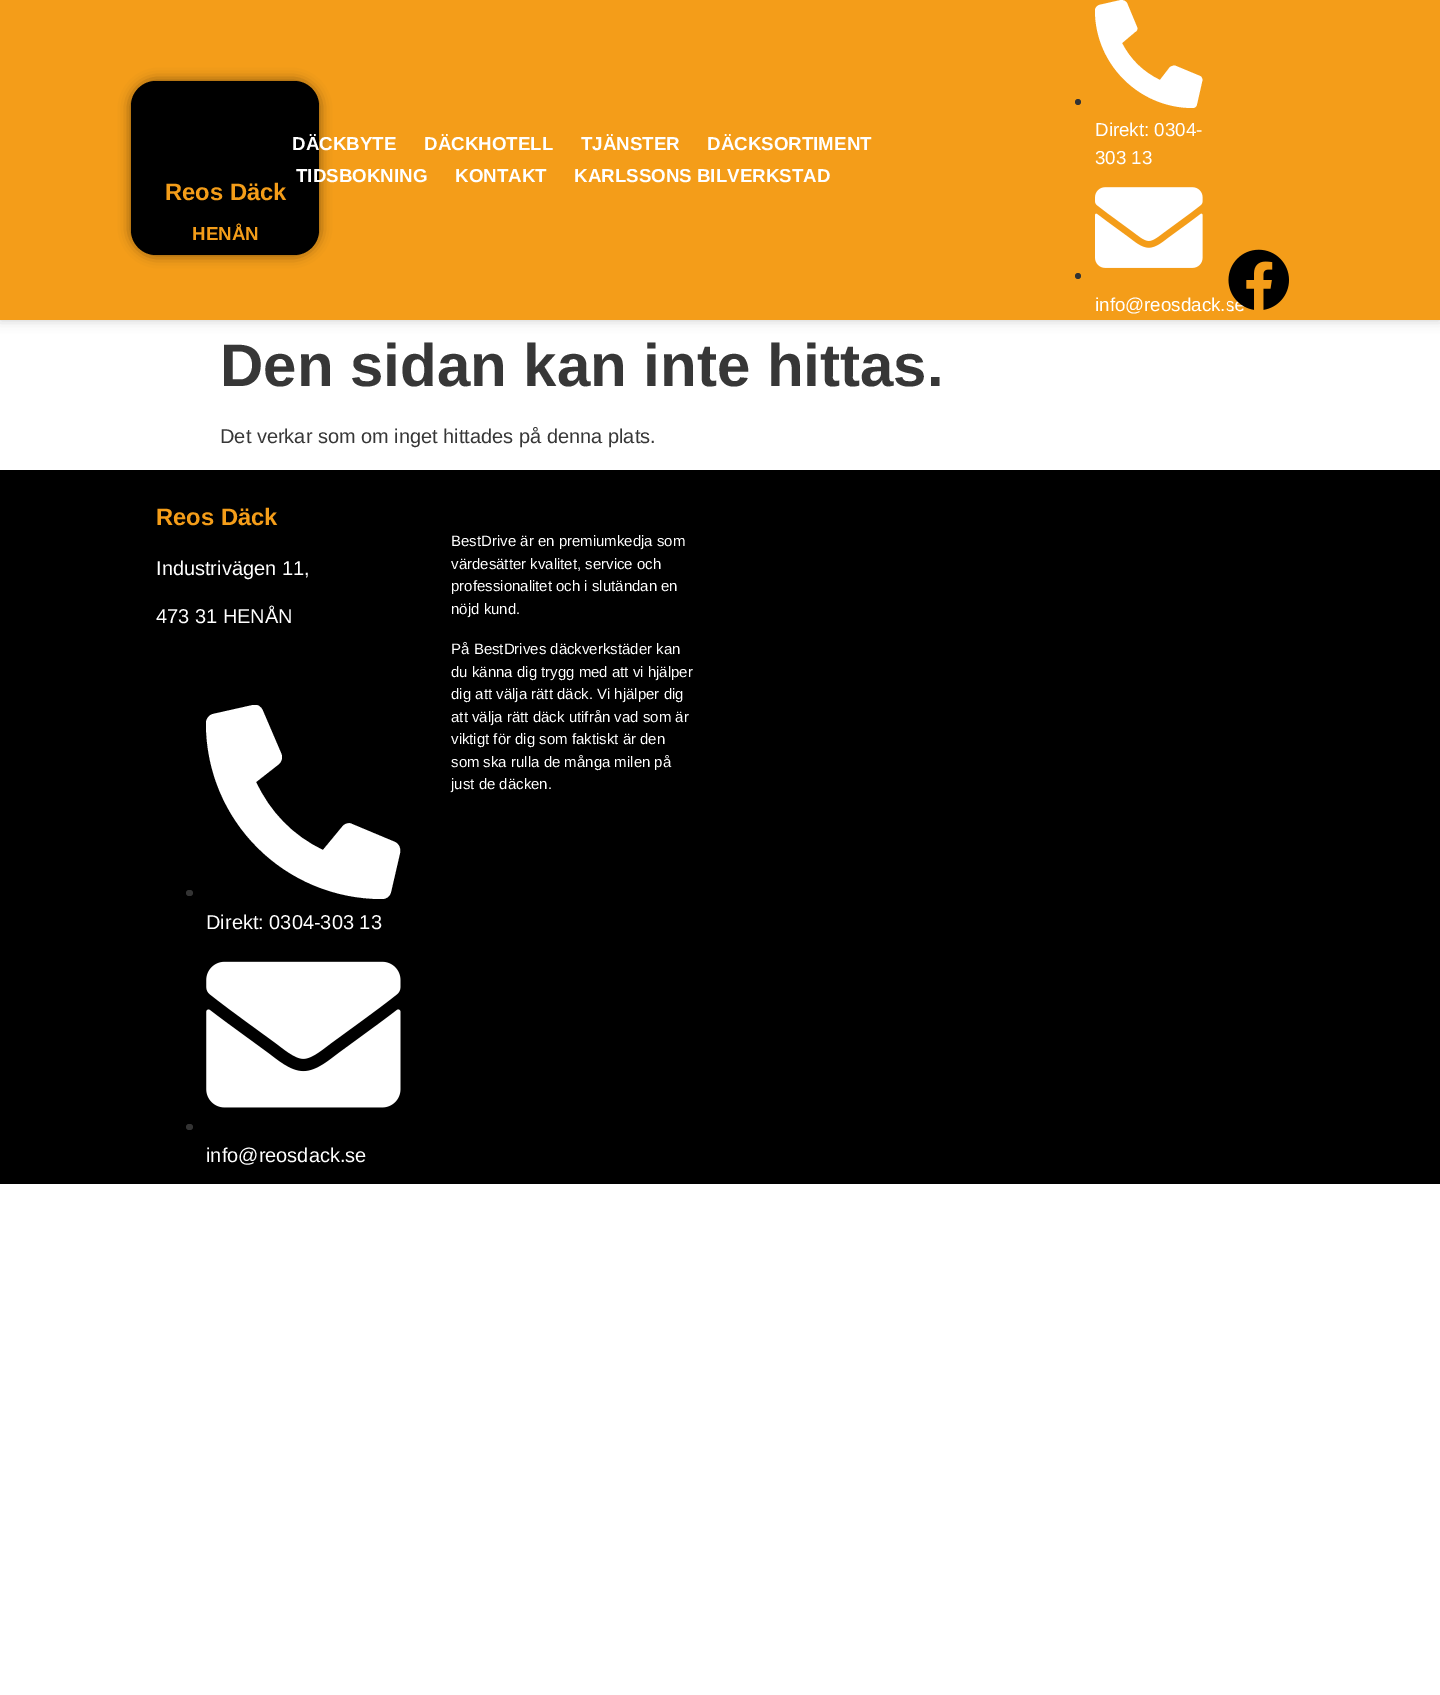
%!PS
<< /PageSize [1440 1695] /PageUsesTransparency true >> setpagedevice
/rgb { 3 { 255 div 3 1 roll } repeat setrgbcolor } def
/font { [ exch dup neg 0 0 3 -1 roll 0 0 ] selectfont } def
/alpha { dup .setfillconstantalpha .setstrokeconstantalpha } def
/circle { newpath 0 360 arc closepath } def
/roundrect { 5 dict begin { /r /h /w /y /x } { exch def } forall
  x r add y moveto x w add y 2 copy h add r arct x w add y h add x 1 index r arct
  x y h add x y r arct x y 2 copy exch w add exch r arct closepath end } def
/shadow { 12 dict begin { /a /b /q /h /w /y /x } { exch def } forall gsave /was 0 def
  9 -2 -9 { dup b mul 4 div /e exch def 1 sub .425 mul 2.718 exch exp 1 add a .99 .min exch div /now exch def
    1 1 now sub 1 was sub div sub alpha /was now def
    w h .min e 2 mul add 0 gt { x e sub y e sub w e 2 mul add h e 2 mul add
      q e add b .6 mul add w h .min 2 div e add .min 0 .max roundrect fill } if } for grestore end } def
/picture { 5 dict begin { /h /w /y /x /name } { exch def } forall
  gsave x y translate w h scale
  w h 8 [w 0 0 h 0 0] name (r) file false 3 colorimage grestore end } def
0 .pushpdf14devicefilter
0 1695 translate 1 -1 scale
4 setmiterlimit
255 255 255 rgb
0 0 1440 1695 rectfill
0 0 0 rgb
0 0 1440 320 0 6 0.2 shadow
244 157 25 rgb
0 0 1440 320 rectfill
51 51 51 rgb
1078 102 3 circle fill
255 255 255 rgb
1200 76 moveto 1176 66 lineto 1174 65 1172 66 1170 67 curveto 1160 80 lineto 1143 72 1130 59 1122 43 curveto 1135 32 lineto 1137 31 1138 29 1137 27 curveto 1127 3 lineto 1126 1 1123 0 1121 0 curveto 1099 5 lineto 1097 6 1095 8 1095 10 curveto 1095 64 1139 108 1193 108 curveto 1195 108 1197 106 1197 104 curveto 1202 82 lineto 1203 79 1202 77 1200 76 curveto closepath fill
51 51 51 rgb
1078 276 3 circle fill
(img/1.rgb) 1095 187 108 81 picture
0 0 0 rgb
131 81 188 174 25 6 0.5 shadow
131 81 188 174 25 roundrect fill
0 470 1440 714 rectfill
51 51 51 rgb
186 890 7 6 3 roundrect fill
gsave
206 705 195 194 rectclip
255 255 255 rgb
395 842 moveto 352 824 lineto 349 822 344 824 342 827 curveto 323 850 lineto 293 836 270 812 256 782 curveto 279 764 lineto 282 761 283 757 281 753 curveto 263 711 lineto 261 706 257 704 253 705 curveto 213 714 lineto 209 715 206 719 206 723 curveto 206 821 285 899 382 899 curveto 387 899 390 896 391 892 curveto 400 853 lineto 401 848 399 844 395 842 curveto closepath fill
grestore
186 1124 7 6 3 roundrect fill
(img/3.rgb) 206 961 195 147 picture
/LiberationSans-Bold 18.75 font
255 255 255 rgb
[
  [(DÄCKBYTE) 292 150]
  [(DÄCKHOTELL) 424 150]
  [(TJÄNSTER) 581 150]
  [(DÄCKSORTIMENT) 707 150]
  [(TIDSBOKNING) 296 182]
  [(KONTAKT) 455 182]
  [(KARLSSONS BILVERKSTAD) 574 182]
] { aload pop moveto show } forall
/LiberationSans-Regular 18.75 font
[
  [(Direkt: 0304-) 1095 136]
  [(303 13) 1095 164]
  [(info@reosdack.se) 1095 311]
] { aload pop moveto show } forall
(img/2.rgb) 1228 249 61 61 picture
/LiberationSans-Bold 23.75 font
244 157 25 rgb
165 200 moveto (Reos Däck) show
/LiberationSans-Bold 18.75 font
192 240 moveto (HENÅN) show
/LiberationSans-Bold 60 font
55 55 55 rgb
220 386 moveto (Den sidan kan inte hittas.) show
/LiberationSans-Regular 20 font
220 443 moveto (Det verkar som om inget hittades på denna plats.) show
/LiberationSans-Bold 23.75 font
244 157 25 rgb
156 525 moveto (Reos Däck) show
/LiberationSans-Regular 20 font
255 255 255 rgb
[
  [(Industrivägen 11,) 156 575]
  [(473 31 HENÅN) 156 623]
  [(Direkt: 0304-303 13) 206 929]
  [(info@reosdack.se) 206 1162]
] { aload pop moveto show } forall
/LiberationSans-Regular 15 font
[
  [(BestDrive är en premiumkedja som) 451 546]
  [(värdesätter kvalitet, service och) 451 569]
  [(professionalitet och i slutändan en) 451 591]
  [(nöjd kund.) 451 614]
  [(På BestDrives däckverkstäder kan) 451 654]
  [(du känna dig trygg med att vi hjälper) 451 677]
  [(dig att välja rätt däck. Vi hjälper dig) 451 699]
  [(att välja rätt däck utifrån vad som är) 451 722]
  [(viktigt för dig som faktiskt är den) 451 744]
  [(som ska rulla de många milen på) 451 767]
  [(just de däcken.) 451 789]
] { aload pop moveto show } forall
.poppdf14devicefilter showpage
